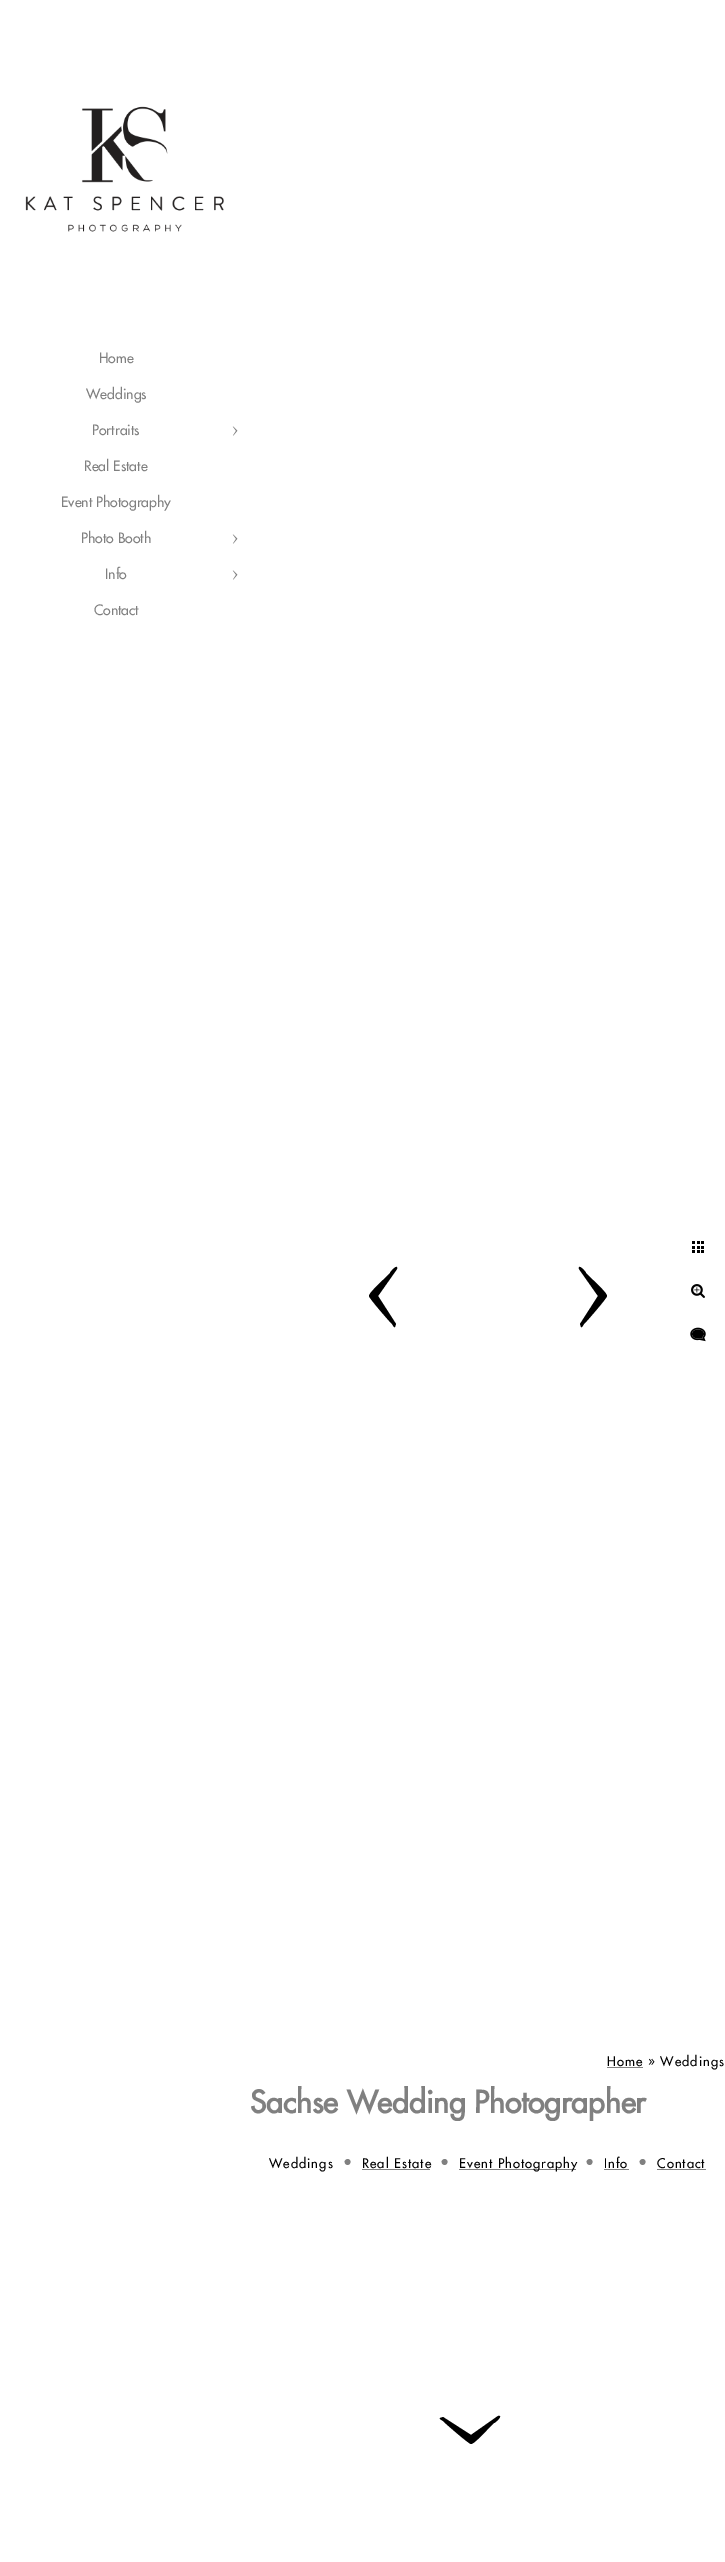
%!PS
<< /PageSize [725 2562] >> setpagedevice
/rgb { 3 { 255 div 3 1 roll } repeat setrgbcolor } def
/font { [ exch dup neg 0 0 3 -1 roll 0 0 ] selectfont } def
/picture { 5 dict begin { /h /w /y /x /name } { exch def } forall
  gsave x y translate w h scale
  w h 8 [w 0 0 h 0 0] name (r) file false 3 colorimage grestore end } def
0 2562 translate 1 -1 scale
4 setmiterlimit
255 255 255 rgb
0 0 725 2562 rectfill
(img/1.rgb) 25 106 199 126 picture
(img/2.rgb) 232 426 6 10 picture
(img/2.rgb) 232 534 6 10 picture
(img/2.rgb) 232 570 6 10 picture
0 0 0 rgb
369 1296 moveto 369 1293 381 1282 383 1280 curveto 390 1273 lineto 390 1272 398 1263 397 1269 curveto 378 1296 lineto 396 1324 lineto 395 1327 lineto 394 1328 393 1325 392 1324 curveto 389 1321 369 1298 369 1296 curveto closepath fill
607 1296 moveto 607 1293 595 1282 593 1280 curveto 586 1273 lineto 586 1272 578 1263 579 1269 curveto 598 1296 lineto 580 1324 lineto 581 1327 lineto 582 1328 583 1325 584 1324 curveto 587 1321 607 1298 607 1296 curveto closepath fill
471 2444 moveto 474 2444 485 2432 487 2430 curveto 494 2423 lineto 495 2423 504 2415 498 2416 curveto 471 2435 lineto 443 2417 lineto 440 2418 lineto 439 2419 442 2420 443 2421 curveto 446 2424 469 2444 471 2444 curveto closepath fill
(img/3.rgb) 692 1241 12 12 picture
(img/4.rgb) 691 1284 14 14 picture
(img/5.rgb) 690 1327 16 15 picture
[
  [607 2067 36 1 128 128 128]
  [362 2169 68 1 128 128 128]
  [459 2169 117 1 128 128 128]
  [604 2169 25 1 128 128 128]
  [657 2169 49 1 128 128 128]
] { aload pop rgb rectfill } forall
/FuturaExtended-Regular 14 font
[
  [(Home) 99 363]
  [(Weddings) 86 399]
  [(Portraits) 92 435]
  [(Real Estate) 84 471]
  [(Event Photography) 61 507]
  [(Photo Booth) 81 543]
  [(Info) 105 579]
  [(Contact) 94 615]
] { aload pop moveto show } forall
/FuturaExtended-Regular 13 font
0 0 0 rgb
607 2066 moveto 1 0 (Home » Weddings) ashow
/FuturaExtended-Bold 30 font
128 128 128 rgb
250 2113 moveto (Sachse Wedding Photographer) show
/FuturaExtended-Regular 13 font
0 0 0 rgb
269 2168 moveto 1 0 (Weddings) ashow
/FuturaExtended-Regular 16 font
128 128 128 rgb
343 2168 moveto (·) show
/FuturaExtended-Regular 13 font
0 0 0 rgb
362 2168 moveto 1 0 (Real Estate) ashow
/FuturaExtended-Regular 16 font
128 128 128 rgb
440 2168 moveto (·) show
/FuturaExtended-Regular 13 font
0 0 0 rgb
459 2168 moveto 1 0 (Event Photography) ashow
/FuturaExtended-Regular 16 font
128 128 128 rgb
585 2168 moveto (·) show
/FuturaExtended-Regular 13 font
0 0 0 rgb
604 2168 moveto 1 0 (Info) ashow
/FuturaExtended-Regular 16 font
128 128 128 rgb
638 2168 moveto (·) show
/FuturaExtended-Regular 13 font
0 0 0 rgb
657 2168 moveto 1 0 (Contact) ashow
showpage
